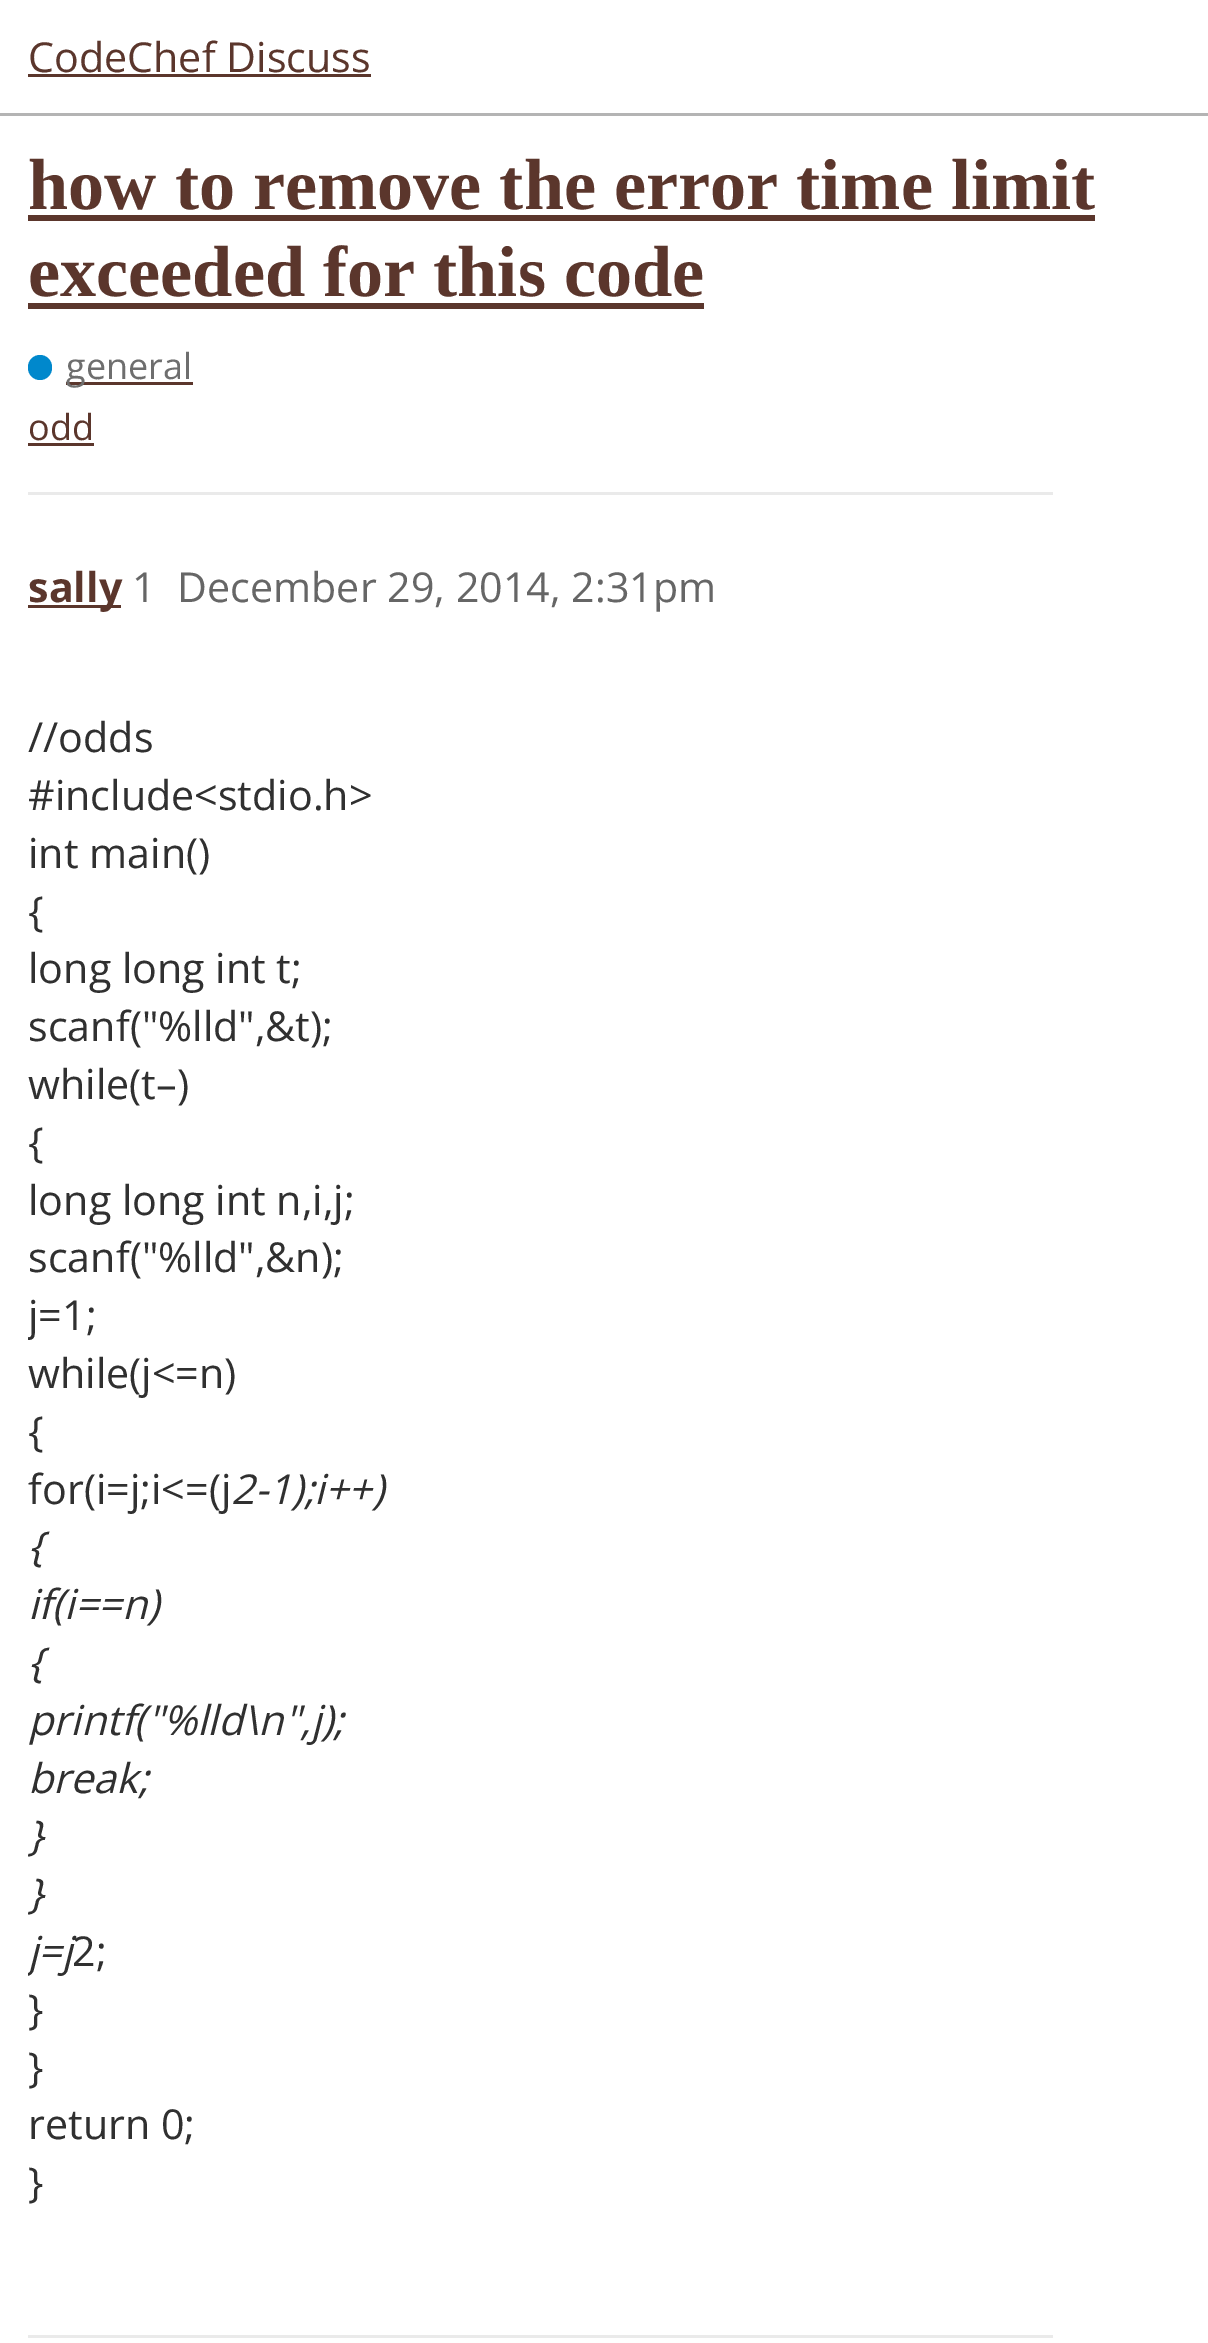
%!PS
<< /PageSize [1208 2343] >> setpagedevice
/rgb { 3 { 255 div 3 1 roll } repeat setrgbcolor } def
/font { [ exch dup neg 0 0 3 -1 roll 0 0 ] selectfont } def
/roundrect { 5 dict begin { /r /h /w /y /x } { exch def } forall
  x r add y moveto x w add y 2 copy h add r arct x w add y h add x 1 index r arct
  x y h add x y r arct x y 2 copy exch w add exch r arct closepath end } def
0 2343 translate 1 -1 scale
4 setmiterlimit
255 255 255 rgb
0 0 1208 2343 rectfill
[
  [0 113 1208 3 180 180 180]
  [28 74 343 3 91 54 44]
  [28 215 1067 6 91 54 44]
  [28 303 676 6 91 54 44]
] { aload pop rgb rectfill } forall
0 136 204 rgb
28 355 24 25 12 roundrect fill
[
  [66 382 127 3 91 54 44]
  [28 443 66 3 91 54 44]
  [28 492 1025 3 234 234 234]
  [28 605 93 3 91 54 44]
  [28 2335 1025 3 234 234 234]
] { aload pop rgb rectfill } forall
/OpenSans-Regular 41.25 font
91 54 44 rgb
28 72 moveto (CodeChef Discuss) show
/LiberationSerif-Bold 72.25 font
28 209 moveto (how to remove the error time limit) show
28 296 moveto (exceeded for this code) show
/OpenSans-Regular 36 font
110 110 110 rgb
66 379 moveto (general) show
91 54 44 rgb
28 440 moveto (odd) show
/OpenSans-Bold 41.25 font
28 602 moveto (sally) show
/OpenSans-Regular 41.25 font
102 102 102 rgb
132 602 moveto (1) show
177 602 moveto (December 29, 2014, 2:31pm) show
48 48 48 rgb
[
  [(//odds) 28 752]
  [(#include<stdio.h>) 28 810]
  [(int main\(\)) 28 868]
  [({) 28 926]
  [(long long int t;) 28 983]
  [(scanf\("%lld",&t\);) 28 1041]
  [(while\(t–\)) 28 1099]
  [({) 28 1157]
  [(long long int n,i,j;) 28 1215]
  [(scanf\("%lld",&n\);) 28 1272]
] { aload pop moveto show } forall
gsave
28 668 1025 1584 rectclip
28 1330 moveto (j=1;) show
grestore
[
  [(while\(j<=n\)) 28 1388]
  [({) 28 1446]
  [(for\(i=j;i<=\(j) 28 1504]
] { aload pop moveto show } forall
/OpenSans-Italic 41.25 font
[
  [(2-1\);i++\)) 231 1504]
  [({) 28 1561]
  [(if\(i==n\)) 28 1619]
  [({) 28 1677]
  [(printf\("%lld\\n",j\);) 28 1735]
  [(break;) 28 1793]
] { aload pop moveto show } forall
gsave
28 668 1025 1584 rectclip
[
  [(}) 28 1850]
  [(}) 28 1908]
  [(j=j) 28 1966]
] { aload pop moveto show } forall
grestore
/OpenSans-Regular 41.25 font
[
  [(2;) 72 1966]
  [(}) 28 2024]
  [(}) 28 2082]
  [(return 0;) 28 2139]
  [(}) 28 2197]
] { aload pop moveto show } forall
showpage
